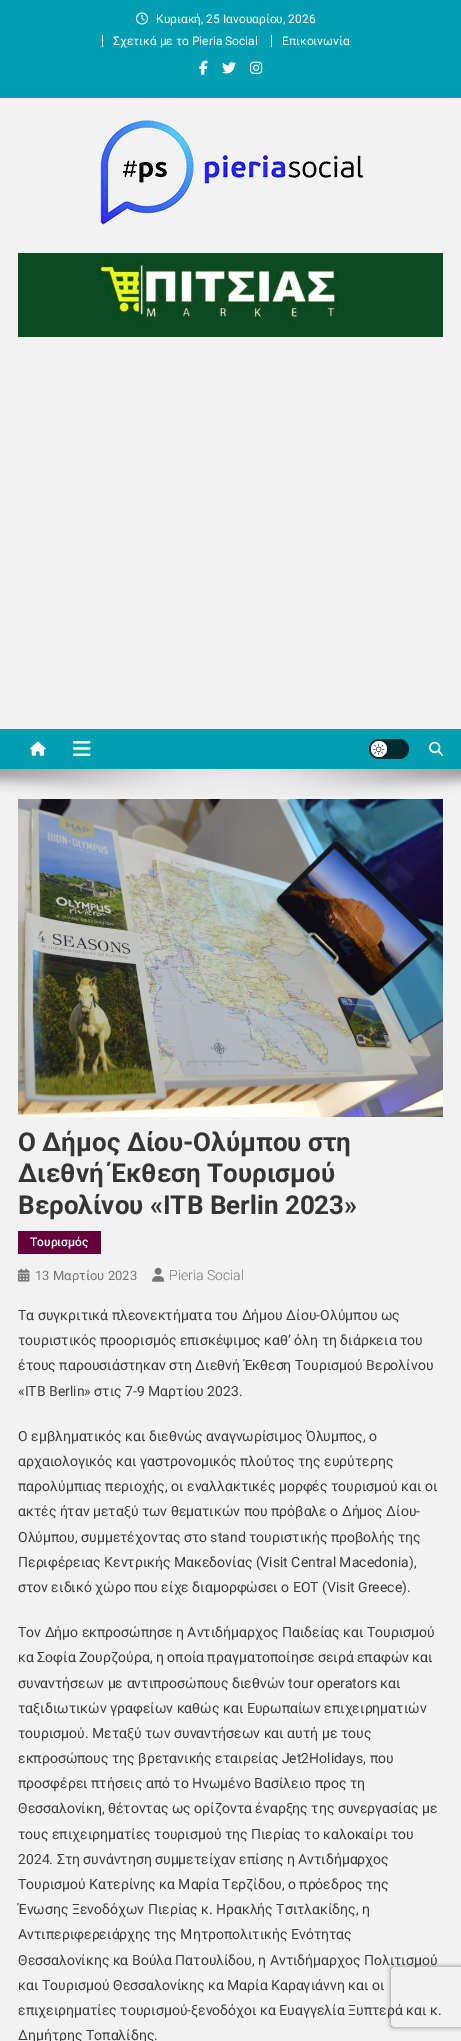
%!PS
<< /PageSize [461 2041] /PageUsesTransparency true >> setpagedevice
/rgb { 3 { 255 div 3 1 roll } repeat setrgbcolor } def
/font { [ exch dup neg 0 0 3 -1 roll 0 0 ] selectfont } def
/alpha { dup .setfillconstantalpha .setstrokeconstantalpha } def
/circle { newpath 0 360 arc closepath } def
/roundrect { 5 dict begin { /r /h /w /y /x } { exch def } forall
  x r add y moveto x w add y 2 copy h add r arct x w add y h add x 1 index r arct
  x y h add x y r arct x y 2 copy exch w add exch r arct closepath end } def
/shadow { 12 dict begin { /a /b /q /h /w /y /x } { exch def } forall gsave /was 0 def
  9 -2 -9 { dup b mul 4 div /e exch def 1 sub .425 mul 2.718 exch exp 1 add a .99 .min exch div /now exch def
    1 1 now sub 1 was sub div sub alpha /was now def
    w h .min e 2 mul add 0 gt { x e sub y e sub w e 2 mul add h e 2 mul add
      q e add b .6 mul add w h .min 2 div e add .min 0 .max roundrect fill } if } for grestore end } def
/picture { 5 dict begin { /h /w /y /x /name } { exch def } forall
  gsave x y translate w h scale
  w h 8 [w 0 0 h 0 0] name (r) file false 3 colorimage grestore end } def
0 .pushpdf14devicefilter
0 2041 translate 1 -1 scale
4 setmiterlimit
242 242 242 rgb
0 0 461 2041 rectfill
2 159 178 rgb
0 0 461 98 rectfill
(img/1.rgb) 136 12 12 13 picture
255 255 255 rgb
102 35 1 12 rectfill
271 35 1 12 rectfill
(img/2.rgb) 199 60 9 15 picture
(img/3.rgb) 222 62 14 12 picture
(img/4.rgb) 250 61 13 13 picture
(img/5.rgb) 100 120 264 105 picture
(img/6.rgb) 18 253 425 84 picture
2 159 178 rgb
0 729 461 40 rectfill
(img/7.rgb) 30 741 16 15 picture
(img/8.rgb) 73 741 18 15 picture
1 40 45 rgb
369 739 40 20 10 roundrect fill
255 255 255 rgb
379 749 8 circle fill
(img/9.rgb) 373 743 12 12 picture
(img/10.rgb) 429 741 14 15 picture
(img/11.rgb) 0 769 461 28 picture
(img/12.rgb) 18 799 425 318 picture
102 0 61 rgb
18 1231 83 23 rectfill
(img/13.rgb) 18 1268 12 14 picture
(img/14.rgb) 152 1267 13 15 picture
gsave
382 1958 moveto 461 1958 lineto 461 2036 lineto 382 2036 lineto closepath 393 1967 moveto 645 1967 lineto 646 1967 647 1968 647 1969 curveto 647 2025 lineto 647 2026 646 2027 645 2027 curveto 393 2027 lineto 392 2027 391 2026 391 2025 curveto 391 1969 lineto 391 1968 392 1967 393 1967 curveto closepath eoclip newpath
128 128 128 rgb
391 1967 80 60 2 2.5 1 shadow
grestore
/Roboto-Regular 12 font
255 255 255 rgb
[
  [(Κυριακή, 25 Ιανουαρίου, 2026) 156 23]
  [(Σχετικά με το Pieria Social) 113 45]
  [(Επικοινωνία) 282 45]
] { aload pop moveto show } forall
/Roboto-Bold 26 font
53 53 53 rgb
[
  [(Ο Δήμος Δίου-Ολύμπου στη) 18 1151]
  [(Διεθνή Έκθεση Τουρισμού) 18 1182]
  [(Βερολίνου «ITB Berlin 2023») 18 1214]
] { aload pop moveto show } forall
/Roboto-Medium 12 font
255 255 255 rgb
30 1246 moveto (Τουρισμός) show
/Roboto-Regular 13 font
118 118 118 rgb
35 1280 moveto (13 Μαρτίου 2023) show
/Roboto-Light 14 font
169 1280 moveto (Pieria Social) show
/Roboto-Regular 14 font
61 61 61 rgb
[
  [(Τα συγκριτικά πλεονεκτήματα του Δήμου Δίου-Ολύμπου ως) 18 1320]
  [(τουριστικός προορισμός επισκέψιμος καθ’ όλη τη διάρκεια του) 18 1345]
  [(έτους παρουσιάστηκαν στη Διεθνή Έκθεση Τουρισμού Βερολίνου) 18 1370]
  [(«ITB Berlin» στις 7-9 Μαρτίου 2023.) 18 1396]
  [(Ο εμβληματικός και διεθνώς αναγνωρίσιμος Όλυμπος, ο) 18 1441]
  [(αρχαιολογικός και γαστρονομικός πλούτος της ευρύτερης) 18 1466]
  [(παρολύμπιας περιοχής, οι εναλλακτικές μορφές τουρισμού και οι) 18 1491]
  [(ακτές ήταν μεταξύ των θεματικών που πρόβαλε ο Δήμος Δίου-) 18 1516]
  [(Ολύμπου, συμμετέχοντας στο stand τουριστικής προβολής της) 18 1542]
  [(Περιφέρειας Κεντρικής Μακεδονίας \(Visit Central Macedonia\),) 18 1567]
  [(στον ειδικό χώρο που είχε διαμορφώσει ο ΕΟΤ \(Visit Greece\).) 18 1592]
  [(Τον Δήμο εκπροσώπησε η Αντιδήμαρχος Παιδείας και Τουρισμού) 18 1637]
  [(κα Σοφία Ζουρζούρα, η οποία πραγματοποίησε σειρά επαφών και) 18 1662]
  [(συναντήσεων με αντιπροσώπους διεθνών tour operators και) 18 1688]
  [(ταξιδιωτικών γραφείων καθώς και Ευρωπαίων επιχειρηματιών) 18 1713]
  [(τουρισμού. Μεταξύ των συναντήσεων και αυτή με τους) 18 1738]
  [(εκπροσώπους της βρετανικής εταιρείας Jet2Holidays, που) 18 1763]
  [(προσφέρει πτήσεις από το Ηνωμένο Βασίλειο προς τη) 18 1788]
  [(Θεσσαλονίκη, θέτοντας ως ορίζοντα έναρξης της συνεργασίας με) 18 1813]
  [(τους επιχειρηματίες τουρισμού της Πιερίας το καλοκαίρι του) 18 1839]
  [(2024. Στη συνάντηση συμμετείχαν επίσης η Αντιδήμαρχος) 18 1864]
  [(Τουρισμού Κατερίνης κα Μαρία Τερζίδου, ο πρόεδρος της) 18 1889]
  [(Ένωσης Ξενοδόχων Πιερίας κ. Ηρακλής Τσιτλακίδης, η) 18 1914]
  [(Αντιπεριφερειάρχης της Μητροπολιτικής Ενότητας) 18 1939]
  [(Θεσσαλονίκης κα Βούλα Πατουλίδου, η Αντιδήμαρχος Πολιτισμού) 18 1965]
  [(και Τουρισμού Θεσσαλονίκης κα Μαρία Καραγιάννη και οι) 18 1990]
  [(επιχειρηματίες τουρισμού-ξενοδόχοι κα Ευαγγελία Ξυπτερά και κ.) 18 2015]
  [(Δημήτρης Τοπαλίδης.) 18 2040]
] { aload pop moveto show } forall
.poppdf14devicefilter showpage
